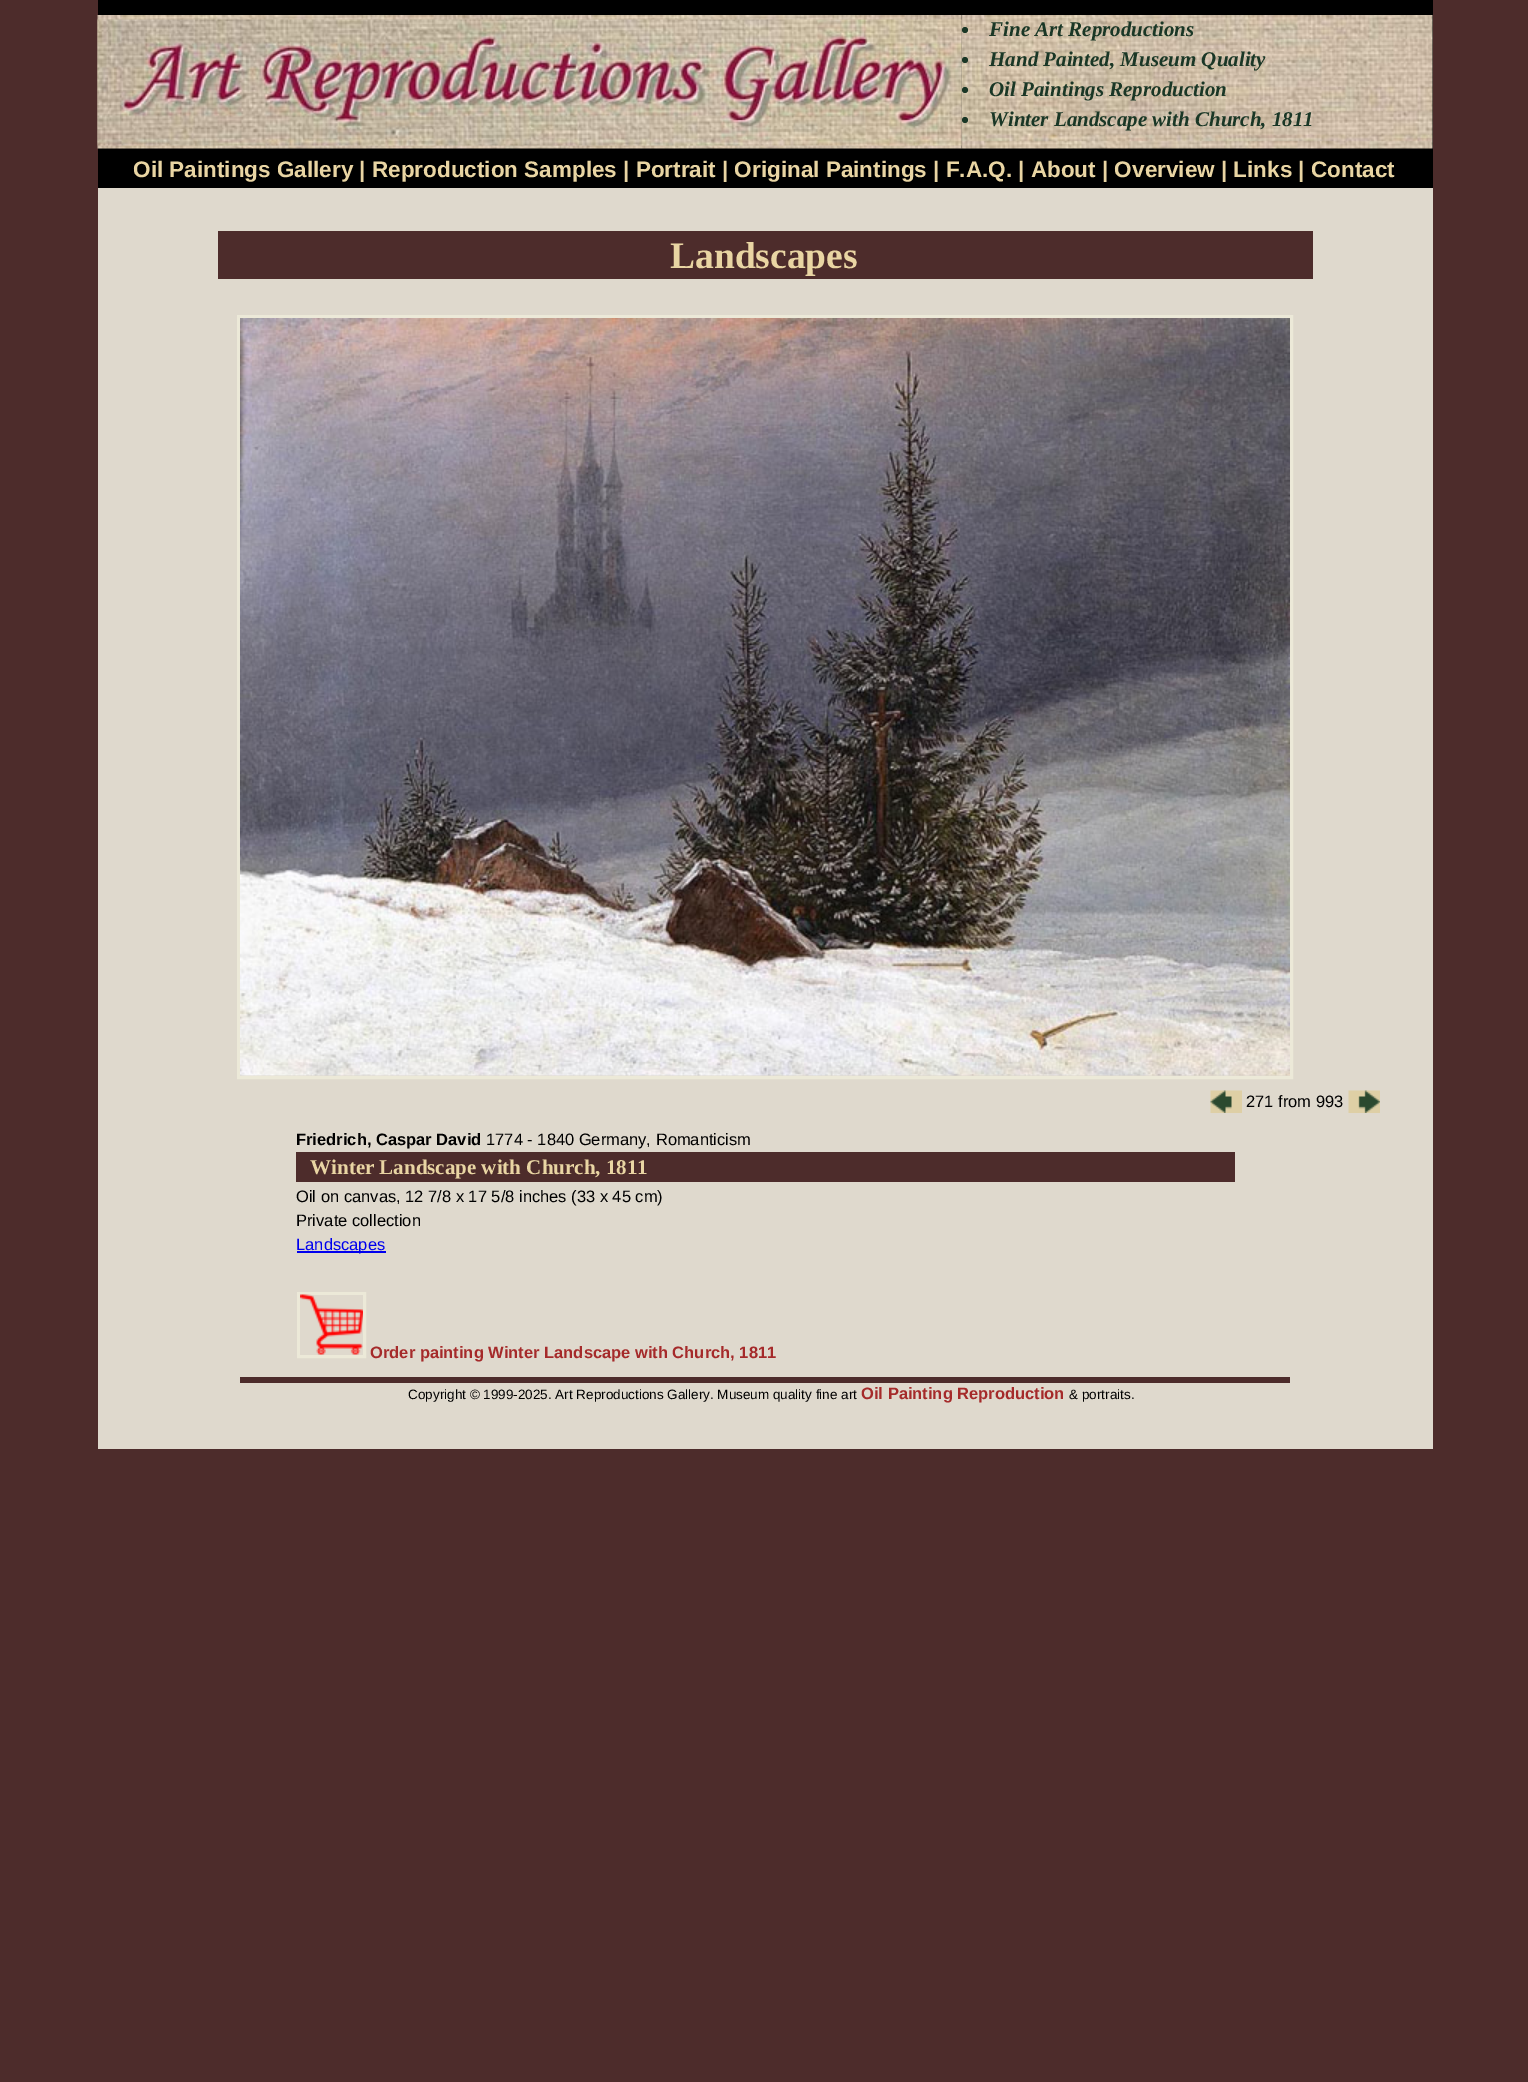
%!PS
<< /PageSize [1528 2082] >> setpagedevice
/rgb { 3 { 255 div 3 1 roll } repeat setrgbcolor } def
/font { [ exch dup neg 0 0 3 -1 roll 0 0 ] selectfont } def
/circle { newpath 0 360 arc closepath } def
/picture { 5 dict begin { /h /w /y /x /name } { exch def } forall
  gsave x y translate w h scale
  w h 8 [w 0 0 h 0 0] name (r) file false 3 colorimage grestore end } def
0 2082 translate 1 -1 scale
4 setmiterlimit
77 44 43 rgb
0 0 1528 2082 rectfill
0 0 0 rgb
98 0 1335 188 rectfill
(img/1.rgb) 97 15 865 134 picture
(img/3.rgb) 961 15 472 134 picture
(img/2.rgb) 97 19 865 127 picture
26 55 38 rgb
965 30 3 circle fill
965 60 3 circle fill
965 90 3 circle fill
965 120 3 circle fill
223 217 205 rgb
98 188 1335 1261 rectfill
77 44 43 rgb
218 231 1095 48 rectfill
236 233 216 rgb
3 setlinewidth
238.5 316.5 1053 761 rectstroke
(img/4.rgb) 240 318 1050 758 picture
(img/5.rgb) 1210 1090 32 23 picture
(img/6.rgb) 1348 1090 32 23 picture
77 44 43 rgb
296 1152 939 30 rectfill
0 0 238 rgb
297 1251 89 2 rectfill
236 233 216 rgb
298.5 1293.5 66 63 rectstroke
(img/7.rgb) 300 1294 63 61 picture
77 44 43 rgb
240 1377 1050 6 rectfill
/LiberationSerif-BoldItalic 21 font
26 55 38 rgb
[
  [(Fine Art Reproductions) 989 36]
  [(Hand Painted, Museum Quality) 989 66]
  [(Oil Paintings Reproduction) 989 96]
  [(Winter Landscape with Church, 1811) 989 126]
] { aload pop moveto show } forall
/LiberationSans-Bold 22.5 font
233 213 163 rgb
133 177 moveto (Oil Paintings Gallery | Reproduction Samples | Portrait | Original Paintings | F.A.Q. | About | Overview | Links | Contact) show
/LiberationSerif-Bold 37.5 font
670 268 moveto (Landscapes) show
/LiberationSans-Regular 16.5 font
0 0 0 rgb
1246 1107 moveto (271 from 993) show
/LiberationSans-Bold 16.5 font
296 1145 moveto (Friedrich, Caspar David) show
/LiberationSans-Regular 16.5 font
486 1145 moveto (1774 - 1840 Germany, Romanticism) show
/LiberationSerif-Bold 21 font
233 213 163 rgb
310 1174 moveto (Winter Landscape with Church, 1811) show
/LiberationSans-Regular 16.5 font
0 0 0 rgb
296 1202 moveto (Oil on canvas, 12 7/8 x 17 5/8 inches \(33 x 45 cm\)) show
296 1226 moveto (Private collection) show
0 0 238 rgb
296 1250 moveto (Landscapes) show
/LiberationSans-Bold 16.5 font
165 42 42 rgb
370 1358 moveto (Order painting Winter Landscape with Church, 1811) show
/LiberationSans-Regular 13.5 font
0 0 0 rgb
408 1399 moveto (Copyright © 1999-2025. Art Reproductions Gallery. Museum quality fine art) show
/LiberationSans-Bold 16.5 font
165 42 42 rgb
861 1399 moveto (Oil Painting Reproduction) show
/LiberationSans-Regular 13.5 font
0 0 0 rgb
1069 1399 moveto (& portraits.) show
showpage
